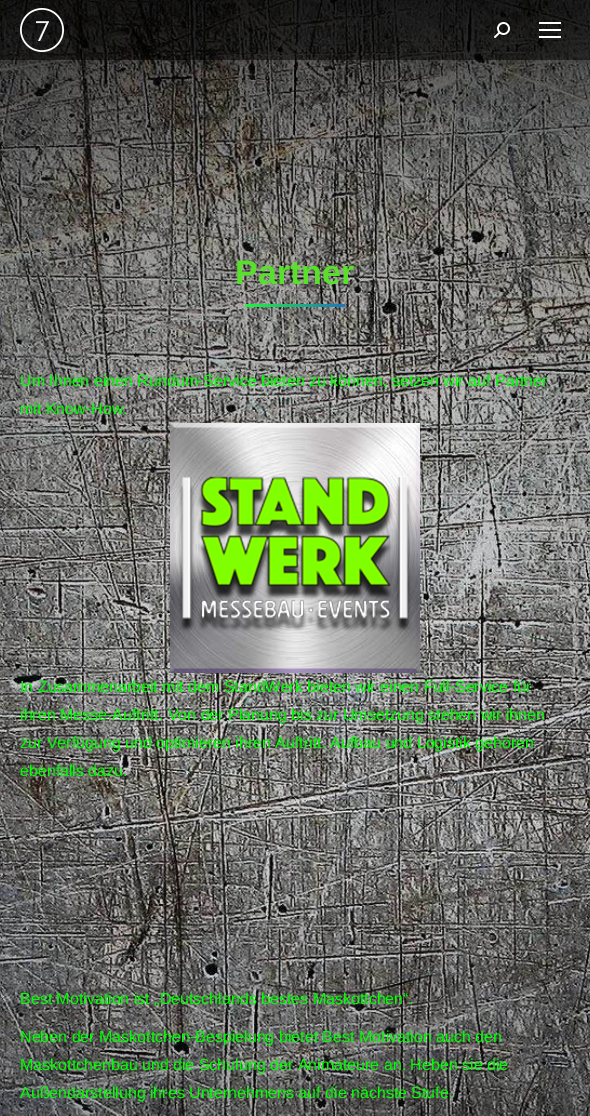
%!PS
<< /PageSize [590 1116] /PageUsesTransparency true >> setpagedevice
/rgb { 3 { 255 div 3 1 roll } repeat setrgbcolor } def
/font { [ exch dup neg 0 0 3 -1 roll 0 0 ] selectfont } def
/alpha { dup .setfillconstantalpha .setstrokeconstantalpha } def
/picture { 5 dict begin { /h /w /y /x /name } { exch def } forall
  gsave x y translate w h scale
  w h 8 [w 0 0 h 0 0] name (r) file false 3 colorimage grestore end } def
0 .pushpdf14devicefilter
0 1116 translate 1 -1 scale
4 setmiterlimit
255 255 255 rgb
0 0 590 1116 rectfill
(img/3.rgb) 0 0 590 1116 picture
0.5 alpha
0 0 0 rgb
0 0 590 60 rectfill
1 alpha
(img/1.rgb) 20 8 44 44 picture
(img/2.rgb) 494 22 16 16 picture
[
  [539 22 22 2 255 255 255]
  [539 29 22 2 255 255 255]
  [539 36 22 2 255 255 255]
] { aload pop rgb rectfill } forall
(img/4.rgb) 245 304 100 3 picture
(img/5.rgb) 170 423 250 250 picture
/LiberationSans-Bold 34 font
88 224 42 rgb
235 284 moveto (Partner) show
/LiberationSans-Regular 16 font
0 255 0 rgb
[
  [(Um Ihnen einen Rundum-Service bieten zu können, setzen wir auf Partner) 20 386]
  [(mit Know-How.) 20 414]
  [(In Zusammenarbeit mit dem StandWerk bieten wir einen Full-Service für) 20 692]
  [(ihren Messe-Auftritt. Von der Planung bis zur Umsetzung stehen wir ihnen) 20 720]
  [(zur Verfügung und optimieren ihren Auftritt. Aufbau und Logistik gehören) 20 748]
  [(ebenfalls dazu.) 20 776]
  [(Best Motivation ist „Deutschlands bestes Maskottchen“.) 20 1004]
  [(Neben der Maskottchen-Bespielung bietet Best Motivation auch den) 20 1042]
  [(Maskottchenbau und die Schulung der Animateure an. Heben sie die) 20 1070]
  [(Außendarstellung ihres Unternehmens auf die nächste Stufe.) 20 1098]
] { aload pop moveto show } forall
.poppdf14devicefilter showpage
